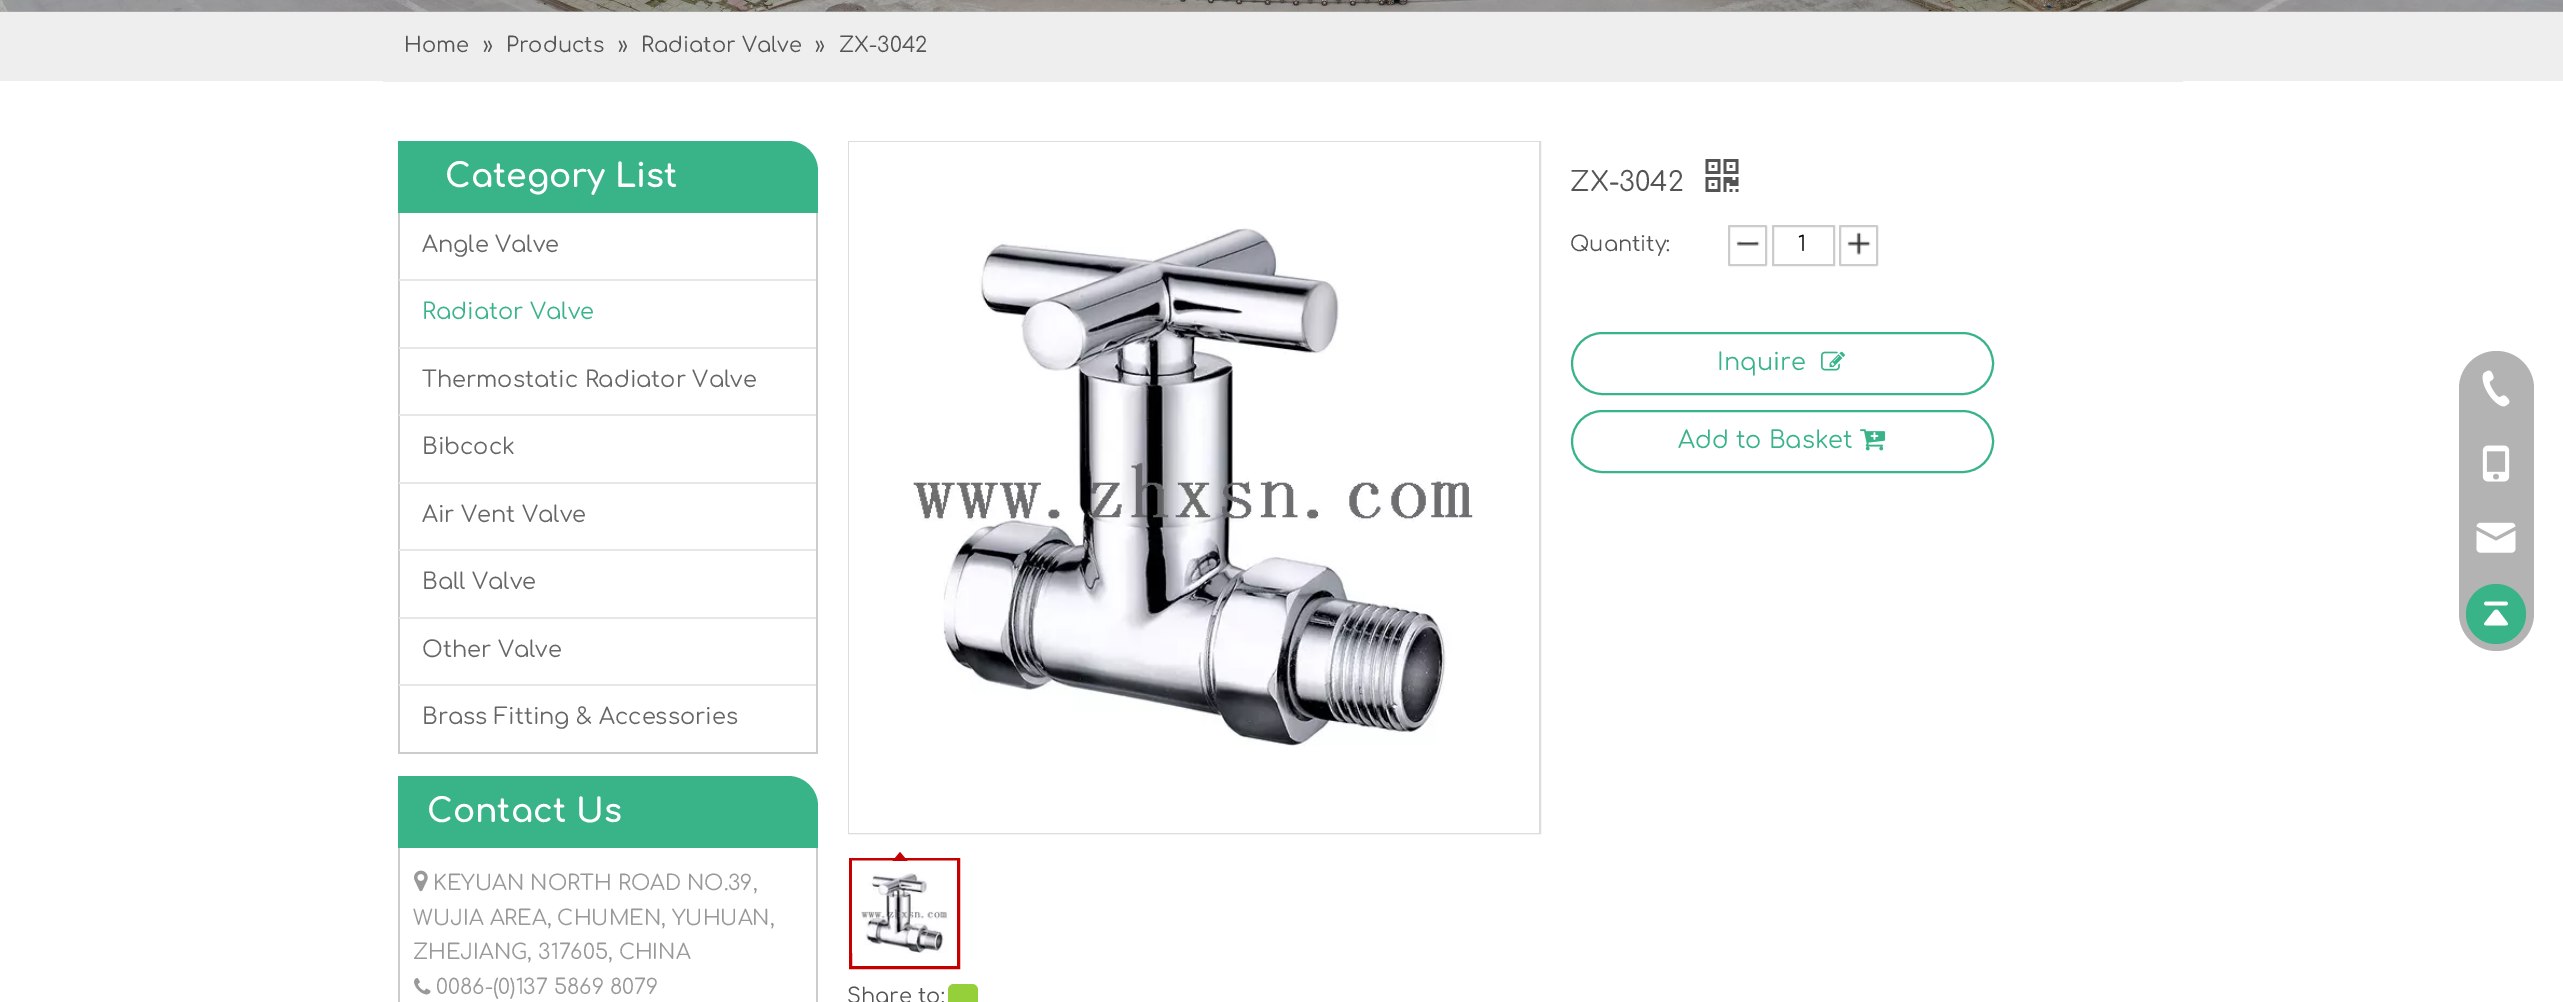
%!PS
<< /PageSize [2563 1002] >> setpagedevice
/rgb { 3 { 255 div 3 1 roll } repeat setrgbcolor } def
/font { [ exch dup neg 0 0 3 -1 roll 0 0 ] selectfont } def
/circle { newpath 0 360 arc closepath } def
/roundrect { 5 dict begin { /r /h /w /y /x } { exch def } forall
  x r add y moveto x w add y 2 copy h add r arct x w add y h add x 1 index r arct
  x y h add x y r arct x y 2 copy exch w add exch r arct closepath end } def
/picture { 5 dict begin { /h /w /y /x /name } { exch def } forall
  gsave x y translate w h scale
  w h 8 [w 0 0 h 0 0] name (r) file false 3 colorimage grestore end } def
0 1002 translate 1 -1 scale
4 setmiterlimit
255 255 255 rgb
0 0 2563 1002 rectfill
179 179 179 rgb
0 11 2563 1 rectfill
(img/1.rgb) 0 0 2563 12 picture
238 238 238 rgb
0 12 2563 69 rectfill
383 81 1800 1 rectfill
57 180 136 rgb
398 141 moveto 788 141 lineto 804.5 141 818 154.5 818 171 curveto 818 213 lineto 398 213 lineto closepath fill
[
  [816 213 2 540 204 204 204]
  [398 752 420 2 204 204 204]
  [398 213 2 540 204 204 204]
  [399 279 417 2 231 231 231]
  [399 347 417 2 231 231 231]
  [399 414 417 2 231 231 231]
  [399 482 417 2 231 231 231]
  [399 549 417 2 231 231 231]
  [399 617 417 2 231 231 231]
  [399 684 417 2 231 231 231]
] { aload pop rgb rectfill } forall
57 180 136 rgb
398 776 moveto 788 776 lineto 804.5 776 818 789.5 818 806 curveto 818 848 lineto 398 848 lineto closepath fill
204 204 204 rgb
816 848 2 154 rectfill
398 848 2 154 rectfill
(img/2.rgb) 414 870 14 22 picture
(img/3.rgb) 414 978 17 17 picture
(img/4.rgb) 1705 159 34 33 picture
(img/5.rgb) 1736 241 24 5 picture
2 setlinewidth
1729 226 37 39 0.5 roundrect stroke
1773 226 61 39 rectstroke
(img/6.rgb) 1847 232 24 23 picture
1840 226 37 39 0.5 roundrect stroke
57 180 136 rgb
1572 333 421 61 30.5 roundrect stroke
(img/7.rgb) 1821 351 24 20 picture
1572 411 421 61 30.5 roundrect stroke
(img/8.rgb) 1860 429 26 22 picture
221 221 221 rgb
849 142 691 691 rectstroke
255 255 255 rgb
849 746 690 87 rectfill
(img/9.rgb) 849 142 690 604 picture
196 0 0 rgb
3 setlinewidth
850.5 859.5 108 108 rectstroke
(img/10.rgb) 852 860 105 93 picture
907.5 861 moveto 892.5 861 lineto 900 852 lineto closepath fill
149 208 58 rgb
948 984 30 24 6 roundrect fill
179 179 179 rgb
2459 351 75 300 37.5 roundrect fill
(img/11.rgb) 2482 370 28 37 picture
(img/12.rgb) 2482 445 28 37 picture
(img/13.rgb) 2476 522 40 31 picture
57 180 136 rgb
2496 614 30 circle fill
(img/14.rgb) 2484 601 24 25 picture
/Comfortaa-Regular 21 font
84 84 84 rgb
[
  [(Home) 404 52]
  [(») 483 52]
  [(Products) 506 52]
  [(») 618 52]
  [(Radiator Valve) 641 52]
  [(») 815 52]
  [(ZX-3042) 839 52]
] { aload pop moveto show } forall
/Comfortaa-Bold 33 font
255 255 255 rgb
445 187 moveto (Category List) show
/Comfortaa-Regular 22.5 font
102 102 102 rgb
422 252 moveto (Angle Valve) show
57 180 136 rgb
422 319 moveto (Radiator Valve) show
102 102 102 rgb
[
  [(Thermostatic Radiator Valve) 422 387]
  [(Bibcock) 422 454]
  [(Air Vent Valve) 422 522]
  [(Ball Valve) 422 589]
  [(Other Valve) 422 657]
  [(Brass Fitting & Accessories) 422 724]
] { aload pop moveto show } forall
/Comfortaa-Bold 33 font
255 255 255 rgb
427 822 moveto (Contact Us) show
/Comfortaa-Regular 21 font
153 153 153 rgb
[
  [(KEYUAN NORTH ROAD NO.39,) 433 890]
  [(WUJIA AREA, CHUMEN, YUHUAN,) 413 925]
  [(ZHEJIANG, 317605, CHINA) 413 959]
  [(0086-\(0\)137 5869 8079) 436 994]
] { aload pop moveto show } forall
/Comfortaa-Regular 27 font
84 84 84 rgb
1570 191 moveto (ZX-3042) show
/Comfortaa-Regular 21 font
1570 251 moveto (Quantity:) show
0 0 0 rgb
1798 251 moveto (1) show
/Comfortaa-Regular 24 font
57 180 136 rgb
1717 370 moveto (Inquire) show
1678 448 moveto (Add to Basket) show
/Comfortaa-Regular 21 font
84 84 84 rgb
847 1003 moveto (Share to:) show
showpage
